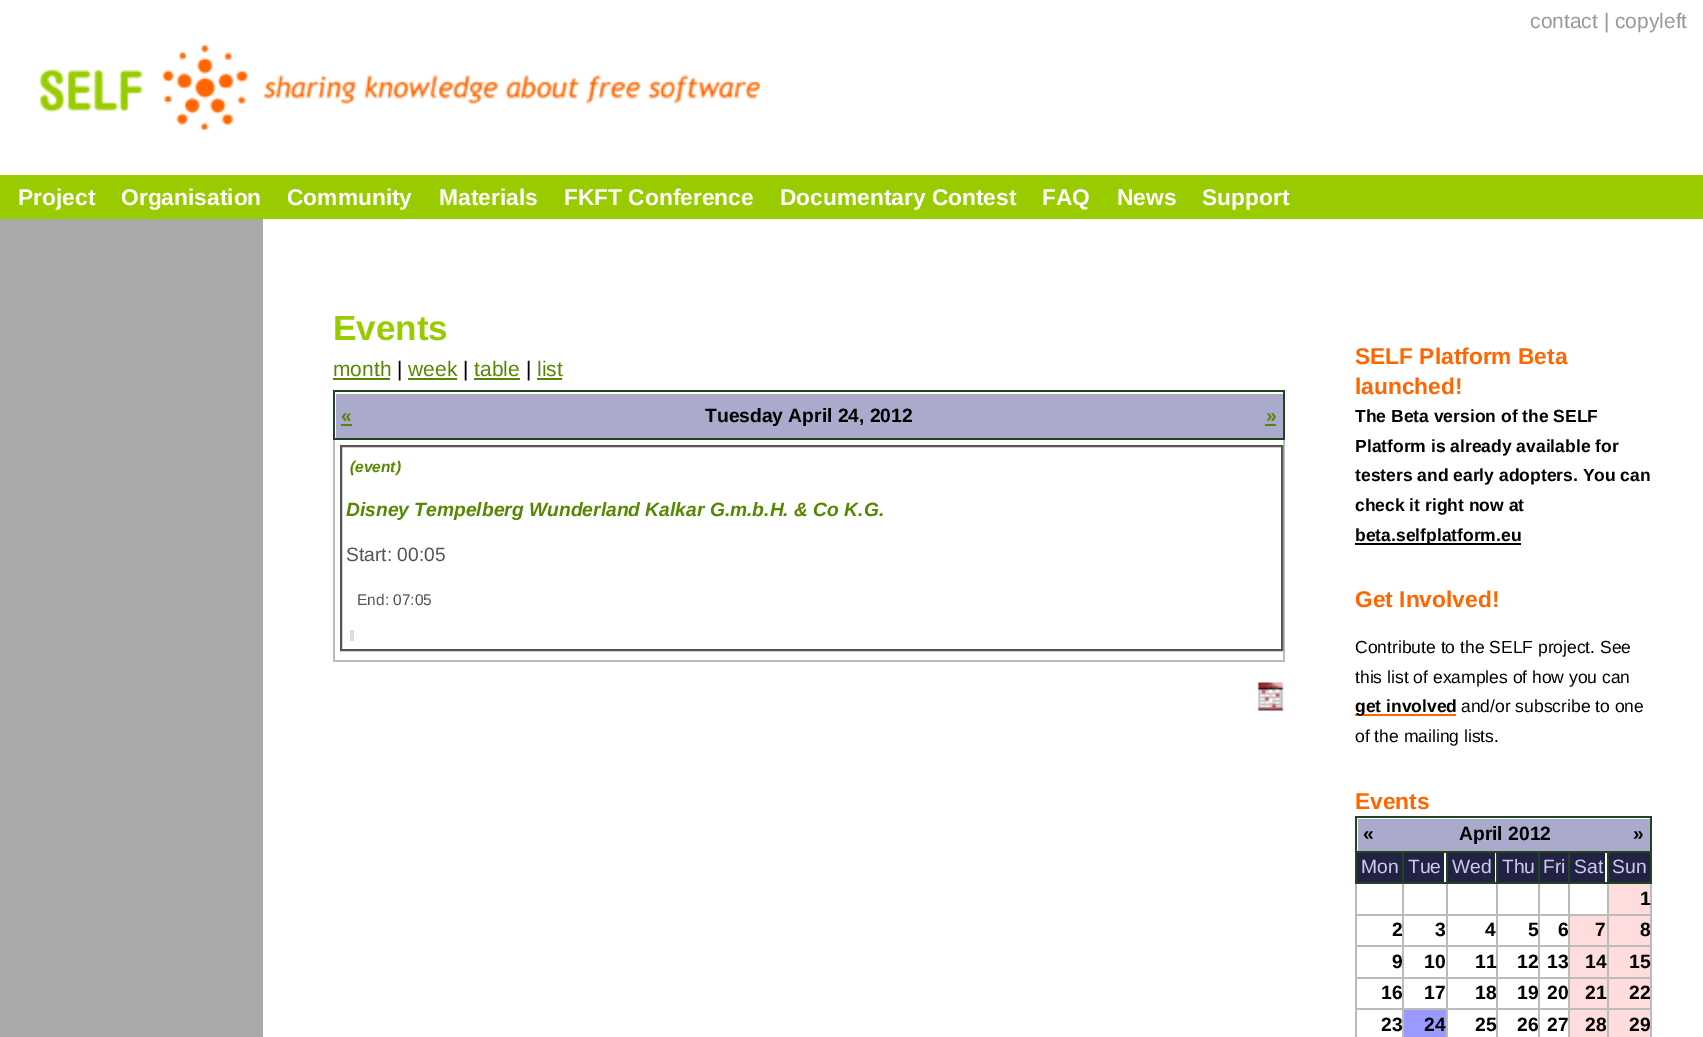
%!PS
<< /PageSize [1703 1037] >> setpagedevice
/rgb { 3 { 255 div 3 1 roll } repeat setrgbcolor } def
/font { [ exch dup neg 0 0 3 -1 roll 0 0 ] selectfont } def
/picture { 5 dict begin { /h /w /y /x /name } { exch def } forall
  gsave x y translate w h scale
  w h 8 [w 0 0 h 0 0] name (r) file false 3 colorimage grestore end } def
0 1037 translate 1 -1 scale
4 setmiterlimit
255 255 255 rgb
0 0 1703 1037 rectfill
170 170 170 rgb
0 219 263 818 rectfill
(img/1.rgb) 39 45 721 85 picture
[
  [0 175 1703 44 153 204 0]
  [333 378 57 2 85 136 0]
  [408 378 49 2 85 136 0]
  [474 378 46 2 85 136 0]
  [537 378 25 2 85 136 0]
  [333 390 952 2 34 68 34]
  [333 390 2 48 34 68 34]
  [336 394 947 44 170 170 204]
  [341 424 11 2 85 136 0]
  [1283 438 2 224 187 187 187]
  [1283 390 2 49 34 68 34]
  [333 660 952 2 187 187 187]
  [333 438 2 224 187 187 187]
  [333 438 952 2 34 68 34]
  [1265 424 11 2 85 136 0]
] { aload pop rgb rectfill } forall
85 85 85 rgb
2 setlinewidth
341 446 941 204 rectstroke
221 221 221 rgb
350 630 4 11 rectfill
(img/2.rgb) 1257 682 27 29 picture
[
  [1355 543 166 2 0 0 0]
  [1355 714 101 2 255 102 0]
  [1355 816 297 2 34 68 34]
  [1650 816 2 35 34 68 34]
  [1355 816 2 66 34 68 34]
  [1358 819 292 32 170 170 204]
  [1607 914 45 2 187 187 187]
  [1607 945 45 2 187 187 187]
  [1607 977 45 2 187 187 187]
  [1607 1008 45 2 187 187 187]
  [1650 1008 2 29 187 187 187]
  [1650 977 2 33 187 187 187]
  [1650 945 2 33 187 187 187]
  [1650 882 2 65 187 187 187]
  [1650 851 2 33 34 68 34]
  [1607 1008 2 29 187 187 187]
  [1568 1008 40 2 187 187 187]
  [1607 977 2 33 187 187 187]
  [1568 977 40 2 187 187 187]
  [1607 945 2 33 187 187 187]
  [1568 945 40 2 187 187 187]
  [1607 914 2 33 187 187 187]
  [1568 914 40 2 187 187 187]
  [1607 882 2 33 187 187 187]
  [1607 882 45 2 34 68 34]
  [1607 851 2 33 34 68 34]
  [1568 1008 2 29 187 187 187]
  [1538 1008 32 2 187 187 187]
  [1568 977 2 33 187 187 187]
  [1538 977 32 2 187 187 187]
  [1568 945 2 33 187 187 187]
  [1538 945 32 2 187 187 187]
  [1568 914 2 33 187 187 187]
  [1538 914 32 2 187 187 187]
  [1568 882 2 33 187 187 187]
  [1568 882 40 2 34 68 34]
  [1568 851 2 33 34 68 34]
  [1538 1008 2 29 187 187 187]
  [1496 1008 44 2 187 187 187]
  [1538 977 2 33 187 187 187]
  [1496 977 44 2 187 187 187]
  [1538 945 2 33 187 187 187]
  [1496 945 44 2 187 187 187]
  [1538 914 2 33 187 187 187]
  [1496 914 44 2 187 187 187]
  [1538 882 2 33 187 187 187]
  [1538 882 32 2 34 68 34]
  [1538 851 2 33 34 68 34]
  [1496 1008 2 29 187 187 187]
  [1446 1008 52 2 187 187 187]
  [1496 977 2 33 187 187 187]
  [1446 977 52 2 187 187 187]
  [1496 945 2 33 187 187 187]
  [1446 945 52 2 187 187 187]
  [1496 914 2 33 187 187 187]
  [1446 914 52 2 187 187 187]
  [1496 882 2 33 187 187 187]
  [1496 882 44 2 34 68 34]
  [1496 851 2 33 34 68 34]
  [1446 1008 2 29 187 187 187]
  [1402 1008 45 2 187 187 187]
  [1446 977 2 33 187 187 187]
  [1402 977 45 2 187 187 187]
  [1446 945 2 33 187 187 187]
  [1402 945 45 2 187 187 187]
  [1446 914 2 33 187 187 187]
  [1402 914 45 2 187 187 187]
  [1446 882 2 33 187 187 187]
  [1446 882 52 2 34 68 34]
  [1446 851 2 33 34 68 34]
  [1402 1008 2 29 187 187 187]
  [1355 1008 49 2 187 187 187]
  [1402 977 2 33 187 187 187]
  [1355 977 49 2 187 187 187]
  [1402 945 2 33 187 187 187]
  [1355 945 49 2 187 187 187]
  [1402 914 2 33 187 187 187]
  [1355 914 49 2 187 187 187]
  [1402 882 2 33 187 187 187]
  [1402 882 45 2 34 68 34]
  [1402 851 2 33 34 68 34]
  [1355 851 297 2 34 68 34]
  [1357 853 45 29 34 34 68]
  [1355 1008 2 29 187 187 187]
  [1355 977 2 33 187 187 187]
  [1355 945 2 33 187 187 187]
  [1355 882 2 65 187 187 187]
  [1355 882 49 2 34 68 34]
  [1404 853 40 29 34 34 68]
  [1448 853 47 29 34 34 68]
  [1498 853 40 29 34 34 68]
  [1540 853 28 29 34 34 68]
  [1570 853 35 29 34 34 68]
  [1609 853 41 29 34 34 68]
  [1609 884 41 30 255 221 221]
  [1570 916 37 29 255 221 221]
  [1609 916 41 29 255 221 221]
  [1570 947 37 30 255 221 221]
  [1609 947 41 30 255 221 221]
  [1570 979 37 29 255 221 221]
  [1609 979 41 29 255 221 221]
  [1404 1010 42 27 153 153 255]
  [1570 1010 37 27 255 221 221]
  [1609 1010 41 27 255 221 221]
] { aload pop rgb rectfill } forall
/LiberationSans-Regular 21 font
153 153 153 rgb
1530 28 moveto (contact | copyleft) show
/LiberationSans-Bold 22.75 font
255 255 255 rgb
[
  [(Project) 18 205]
  [(Organisation) 121 205]
  [(Community) 287 205]
  [(Materials) 439 205]
  [(FKFT Conference) 564 205]
  [(Documentary Contest) 780 205]
  [(FAQ) 1042 205]
  [(News) 1117 205]
  [(Support) 1202 205]
] { aload pop moveto show } forall
/LiberationSans-Bold 35 font
153 204 0 rgb
333 340 moveto (Events) show
/LiberationSans-Regular 21 font
85 136 0 rgb
333 376 moveto (month) show
0 0 0 rgb
397 376 moveto (|) show
85 136 0 rgb
408 376 moveto (week) show
0 0 0 rgb
463 376 moveto (|) show
85 136 0 rgb
474 376 moveto (table) show
0 0 0 rgb
526 376 moveto (|) show
85 136 0 rgb
537 376 moveto (list) show
/LiberationSans-Bold 19.25 font
341 422 moveto («) show
0 0 0 rgb
705 422 moveto (Tuesday April 24, 2012) show
85 136 0 rgb
1266 422 moveto (») show
/LiberationSans-BoldItalic 15.5 font
350 472 moveto (\(event\)) show
/LiberationSans-BoldItalic 19.25 font
346 516 moveto (Disney Tempelberg Wunderland Kalkar G.m.b.H. & Co K.G.) show
/LiberationSans-Regular 19.25 font
85 85 85 rgb
346 561 moveto (Start: 00:05) show
/LiberationSans-Regular 15.5 font
357 605 moveto (End: 07:05) show
/LiberationSans-Bold 22.75 font
255 102 0 rgb
1355 364 moveto (SELF Platform Beta) show
1355 394 moveto (launched!) show
/LiberationSans-Bold 17.5 font
0 0 0 rgb
[
  [(The Beta version of the SELF) 1355 422]
  [(Platform is already available for) 1355 452]
  [(testers and early adopters. You can) 1355 481]
  [(check it right now at) 1355 511]
  [(beta.selfplatform.eu) 1355 541]
] { aload pop moveto show } forall
/LiberationSans-Bold 22.75 font
255 102 0 rgb
1355 607 moveto (Get Involved!) show
/LiberationSans-Regular 17.5 font
0 0 0 rgb
1355 653 moveto (Contribute to the SELF project. See) show
1355 683 moveto (this list of examples of how you can) show
/LiberationSans-Bold 17.5 font
1355 712 moveto (get involved) show
/LiberationSans-Regular 17.5 font
1461 712 moveto (and/or subscribe to one) show
1355 742 moveto (of the mailing lists.) show
/LiberationSans-Bold 22.75 font
255 102 0 rgb
1355 809 moveto (Events) show
/LiberationSans-Bold 19.25 font
0 0 0 rgb
[
  [(«) 1363 840]
  [(April 2012) 1459 840]
  [(») 1633 840]
] { aload pop moveto show } forall
/LiberationSans-Regular 19.25 font
204 204 238 rgb
[
  [(Mon) 1361 873]
  [(Tue) 1408 873]
  [(Wed) 1452 873]
  [(Thu) 1502 873]
  [(Fri) 1543 873]
  [(Sat) 1574 873]
  [(Sun) 1612 873]
] { aload pop moveto show } forall
/LiberationSans-Bold 19.25 font
0 0 0 rgb
[
  [(1) 1640 905]
  [(2) 1392 936]
  [(3) 1435 936]
  [(4) 1485 936]
  [(5) 1528 936]
  [(6) 1558 936]
  [(7) 1595 936]
  [(8) 1640 936]
  [(9) 1392 968]
  [(10) 1424 968]
  [(11) 1475 968]
  [(12) 1517 968]
  [(13) 1547 968]
  [(14) 1585 968]
  [(15) 1629 968]
  [(16) 1381 999]
  [(17) 1424 999]
  [(18) 1475 999]
  [(19) 1517 999]
  [(20) 1547 999]
  [(21) 1585 999]
  [(22) 1629 999]
  [(23) 1381 1031]
  [(24) 1424 1031]
  [(25) 1475 1031]
  [(26) 1517 1031]
  [(27) 1547 1031]
  [(28) 1585 1031]
  [(29) 1629 1031]
] { aload pop moveto show } forall
showpage
